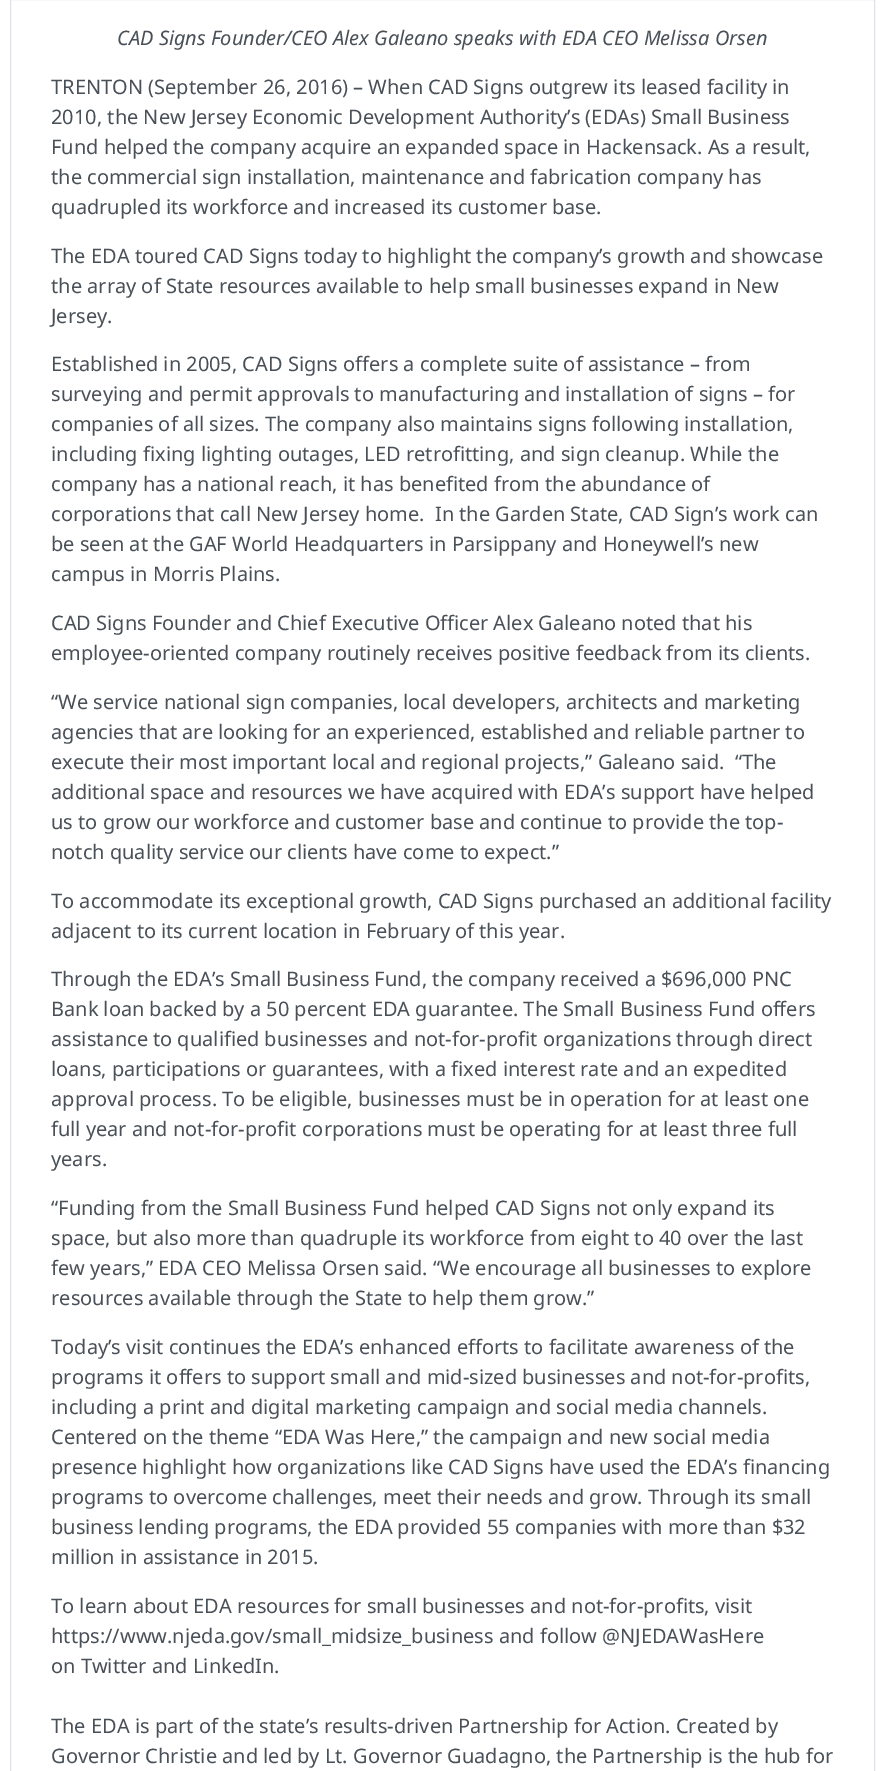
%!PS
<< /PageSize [885 1771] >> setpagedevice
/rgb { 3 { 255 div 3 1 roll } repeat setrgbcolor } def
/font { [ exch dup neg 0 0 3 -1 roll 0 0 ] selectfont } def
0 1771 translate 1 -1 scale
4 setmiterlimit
255 255 255 rgb
0 0 885 1771 rectfill
222 226 230 rgb
10.5 -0.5 864 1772 rectstroke
/NotoSans-Italic 20 font
73 80 87 rgb
117 45 moveto (CAD Signs Founder/CEO Alex Galeano speaks with EDA CEO Melissa Orsen) show
/NotoSans-Regular 20 font
[
  [(TRENTON \(September 26, 2016\) – When CAD Signs outgrew its leased facility in) 51 94]
  [(2010, the New Jersey Economic Development Authority’s \(EDAs\) Small Business) 51 124]
  [(Fund helped the company acquire an expanded space in Hackensack. As a result,) 51 154]
  [(the commercial sign installation, maintenance and fabrication company has) 51 184]
  [(quadrupled its workforce and increased its customer base.) 51 214]
  [(The EDA toured CAD Signs today to highlight the company’s growth and showcase) 51 263]
  [(the array of State resources available to help small businesses expand in New) 51 293]
  [(Jersey.) 51 323]
  [(Established in 2005, CAD Signs offers a complete suite of assistance – from) 51 371]
  [(surveying and permit approvals to manufacturing and installation of signs – for) 51 401]
  [(companies of all sizes. The company also maintains signs following installation,) 51 431]
  [(including fixing lighting outages, LED retrofitting, and sign cleanup. While the) 51 461]
  [(company has a national reach, it has benefited from the abundance of) 51 491]
  [(corporations that call New Jersey home.  In the Garden State, CAD Sign’s work can) 51 521]
  [(be seen at the GAF World Headquarters in Parsippany and Honeywell’s new) 51 551]
  [(campus in Morris Plains.) 51 581]
  [(CAD Signs Founder and Chief Executive Officer Alex Galeano noted that his) 51 630]
  [(employee-oriented company routinely receives positive feedback from its clients.) 51 660]
  [(“We service national sign companies, local developers, architects and marketing) 51 709]
  [(agencies that are looking for an experienced, established and reliable partner to) 51 739]
  [(execute their most important local and regional projects,” Galeano said.  “The) 51 769]
  [(additional space and resources we have acquired with EDA’s support have helped) 51 799]
  [(us to grow our workforce and customer base and continue to provide the top-) 51 829]
  [(notch quality service our clients have come to expect.”) 51 859]
  [(To accommodate its exceptional growth, CAD Signs purchased an additional facility) 51 908]
  [(adjacent to its current location in February of this year.) 51 938]
  [(Through the EDA’s Small Business Fund, the company received a $696,000 PNC) 51 986]
  [(Bank loan backed by a 50 percent EDA guarantee. The Small Business Fund offers) 51 1016]
  [(assistance to qualified businesses and not-for-profit organizations through direct) 51 1046]
  [(loans, participations or guarantees, with a fixed interest rate and an expedited) 51 1076]
  [(approval process. To be eligible, businesses must be in operation for at least one) 51 1106]
  [(full year and not-for-profit corporations must be operating for at least three full) 51 1136]
  [(years.) 51 1166]
  [(“Funding from the Small Business Fund helped CAD Signs not only expand its) 51 1215]
  [(space, but also more than quadruple its workforce from eight to 40 over the last) 51 1245]
  [(few years,” EDA CEO Melissa Orsen said. “We encourage all businesses to explore) 51 1275]
  [(resources available through the State to help them grow.”) 51 1305]
  [(Today’s visit continues the EDA’s enhanced efforts to facilitate awareness of the) 51 1354]
  [(programs it offers to support small and mid-sized businesses and not-for-profits,) 51 1384]
  [(including a print and digital marketing campaign and social media channels.) 51 1414]
  [(Centered on the theme “EDA Was Here,” the campaign and new social media) 51 1444]
  [(presence highlight how organizations like CAD Signs have used the EDA’s financing) 51 1474]
  [(programs to overcome challenges, meet their needs and grow. Through its small) 51 1504]
  [(business lending programs, the EDA provided 55 companies with more than $32) 51 1534]
  [(million in assistance in 2015.) 51 1564]
  [(To learn about EDA resources for small businesses and not-for-profits, visit) 51 1613]
  [(https://www.njeda.gov/small_midsize_business and follow @NJEDAWasHere) 51 1643]
  [(on Twitter and LinkedIn.) 51 1673]
  [(The EDA is part of the state’s results-driven Partnership for Action. Created by) 51 1733]
  [(Governor Christie and led by Lt. Governor Guadagno, the Partnership is the hub for) 51 1763]
] { aload pop moveto show } forall
showpage
